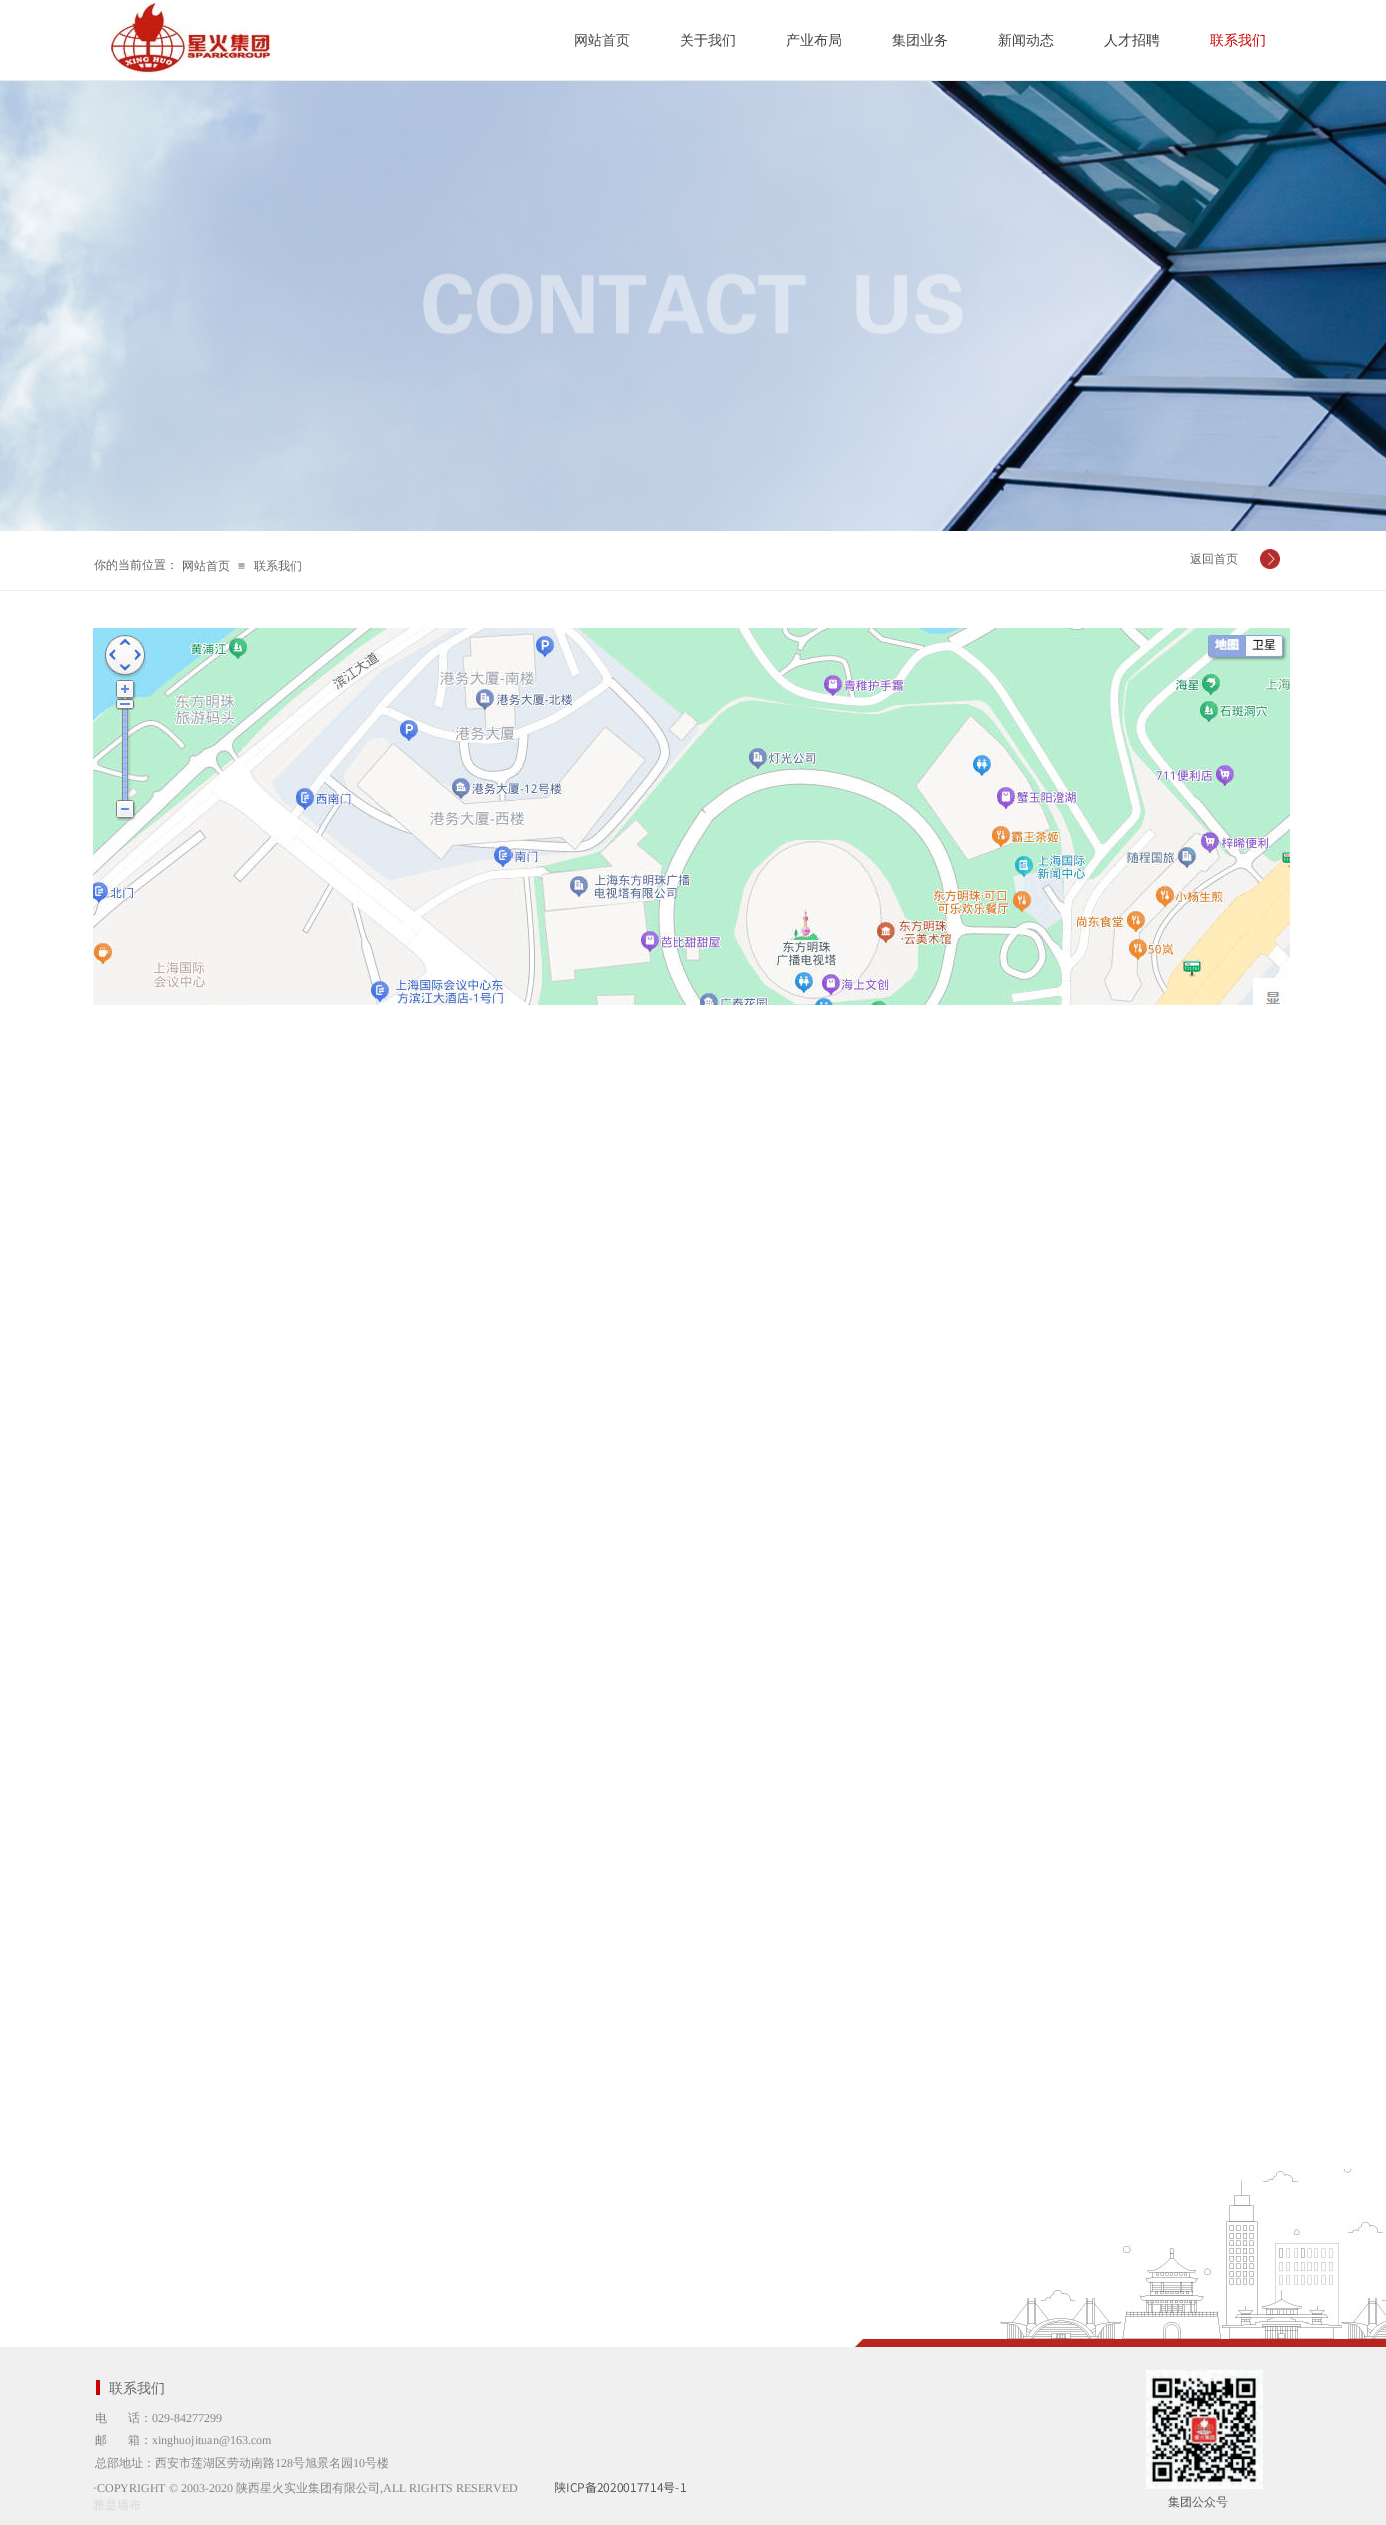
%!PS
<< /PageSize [1386 2525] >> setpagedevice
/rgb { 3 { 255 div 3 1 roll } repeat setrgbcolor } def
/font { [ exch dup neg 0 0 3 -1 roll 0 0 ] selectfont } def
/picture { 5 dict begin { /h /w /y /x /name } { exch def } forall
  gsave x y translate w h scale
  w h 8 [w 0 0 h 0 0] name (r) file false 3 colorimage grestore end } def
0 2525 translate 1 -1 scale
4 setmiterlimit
255 255 255 rgb
0 0 1386 2525 rectfill
(img/1.rgb) 110 3 161 71 picture
235 235 235 rgb
0 80 1386 1 rectfill
(img/2.rgb) 0 81 1386 450 picture
(img/3.rgb) 1260 549 20 20 picture
0 590 1386 1 rectfill
(img/4.rgb) 93 628 1197 377 picture
(img/5.rgb) 0 2169 1386 356 picture
204 0 0 rgb
96 2380 4 15 rectfill
(img/6.rgb) 1146 2370 117 119 picture
/WenQuanYiZenHei-Medium 14 font
67 67 67 rgb
[
  [(网站首页) 574 45]
  [(关于我们) 680 45]
  [(产业布局) 786 45]
  [(集团业务) 892 45]
  [(新闻动态) 998 45]
  [(人才招聘) 1104 45]
] { aload pop moveto show } forall
204 0 0 rgb
1210 45 moveto (联系我们) show
/WenQuanYiZenHei-Medium 12 font
102 102 102 rgb
94 569 moveto (你的当前位置：) show
182 570 moveto (网站首页) show
/LiberationSans-Regular 12 font
238 570 moveto (≡) show
/WenQuanYiZenHei-Medium 12 font
254 570 moveto (联系我们) show
1190 563 moveto (返回首页) show
/WenQuanYiZenHei-Medium 14 font
109 2393 moveto (联系我们) show
/WenQuanYiZenHei-Medium 12 font
136 136 136 rgb
95 2422 moveto (电) show
128 2422 moveto (话：) show
/LiberationSerif-Regular 12 font
152 2422 moveto (029-84277299) show
/WenQuanYiZenHei-Medium 12 font
95 2444 moveto (邮) show
128 2444 moveto (箱：) show
/LiberationSerif-Regular 12 font
152 2444 moveto (xinghuojituan@163.com) show
/WenQuanYiZenHei-Medium 12 font
95 2467 moveto (总部地址：西安市莲湖区劳动南路) show
/LiberationSerif-Regular 12 font
275 2467 moveto (128) show
/WenQuanYiZenHei-Medium 12 font
293 2467 moveto (号旭景名园) show
/LiberationSerif-Regular 12 font
353 2467 moveto (10) show
/WenQuanYiZenHei-Medium 12 font
365 2467 moveto (号楼) show
/LiberationSerif-Regular 12 font
93 2492 moveto (·COPYRIGHT © 2003-2020) show
/WenQuanYiZenHei-Medium 12 font
236 2492 moveto (陕西星火实业集团有限公司) show
/LiberationSerif-Regular 12 font
380 2492 moveto (,ALL RIGHTS RESERVED) show
/WenQuanYiZenHei-Medium 12 font
217 217 217 rgb
93 2509 moveto (雅是墙布) show
/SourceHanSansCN-Regular 12 font
90 90 90 rgb
554 2492 moveto (陕ICP备2020017714号-1) show
/WenQuanYiZenHei-Medium 12 font
1168 2506 moveto (集团公众号) show
showpage
